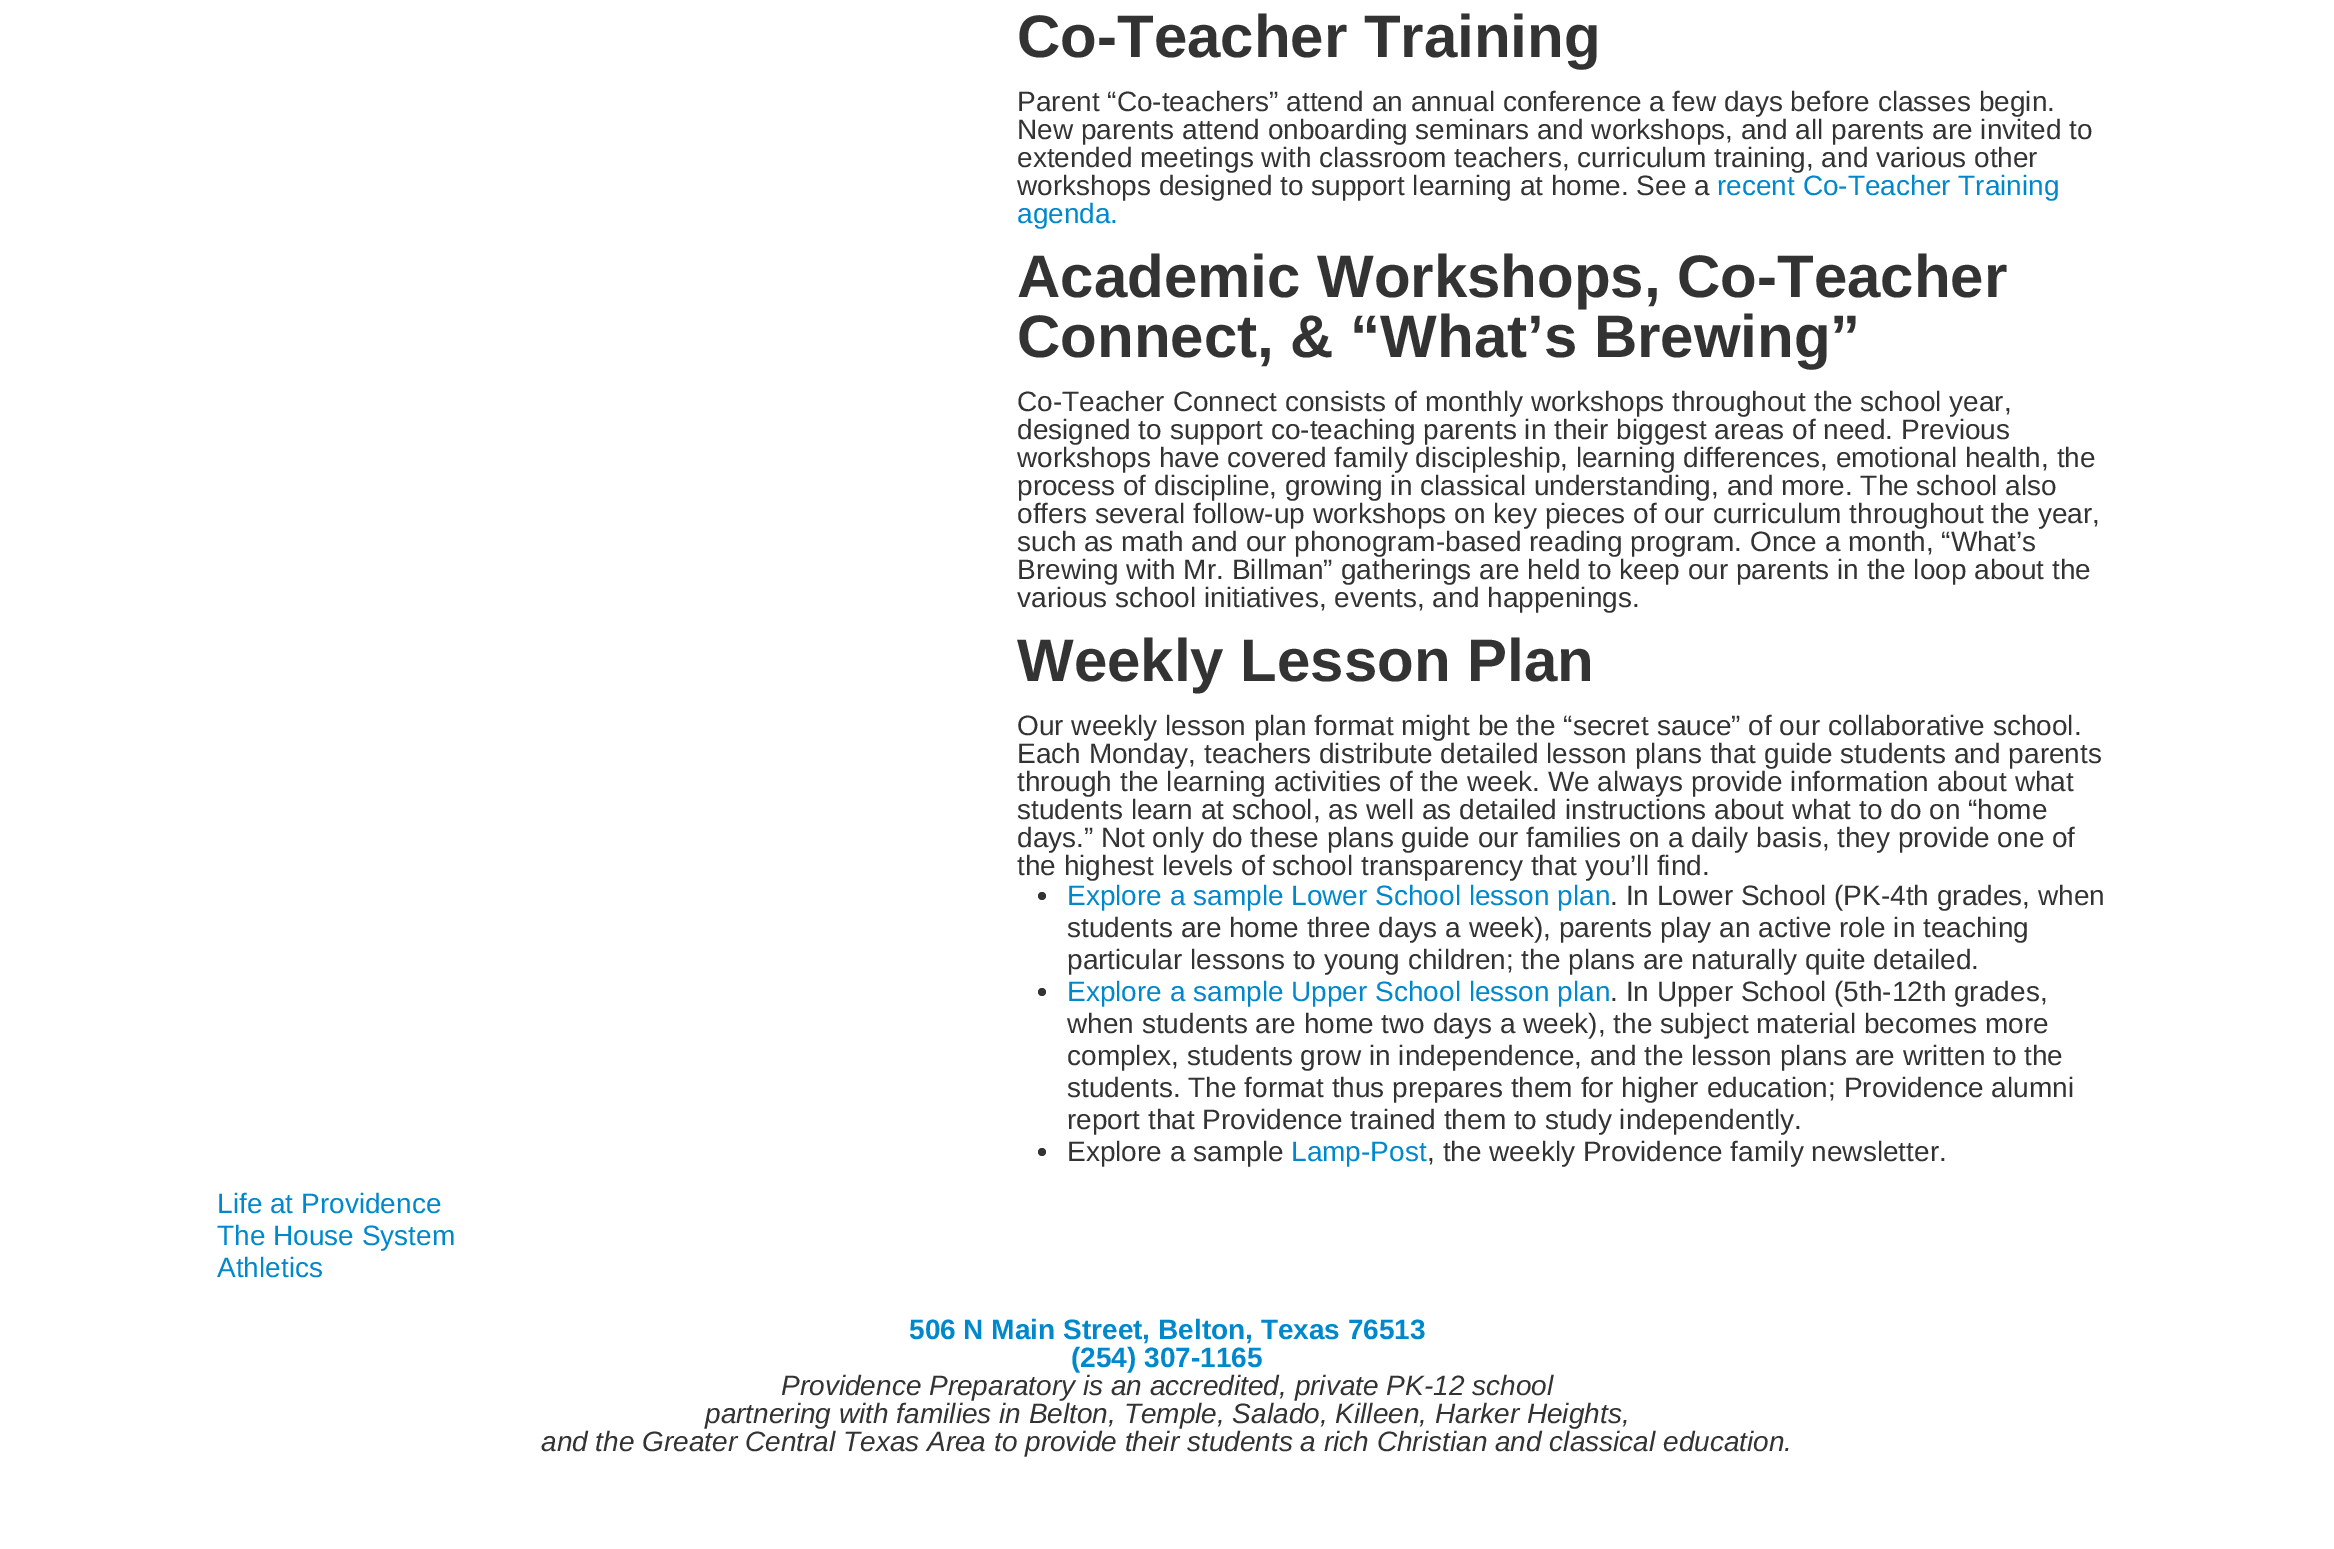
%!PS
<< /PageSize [2334 1549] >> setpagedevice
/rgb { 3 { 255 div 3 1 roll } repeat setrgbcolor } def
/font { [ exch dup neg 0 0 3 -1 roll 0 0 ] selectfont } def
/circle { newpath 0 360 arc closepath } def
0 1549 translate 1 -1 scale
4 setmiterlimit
255 255 255 rgb
0 0 2334 1549 rectfill
51 51 51 rgb
1042 896 4 circle fill
1042 992 4 circle fill
1042 1152 4 circle fill
/LiberationSans-Bold 60 font
1017 57 moveto (Co-Teacher Training) show
/LiberationSans-Regular 28 font
[
  [(Parent “Co-teachers” attend an annual conference a few days before classes begin.) 1017 111]
  [(New parents attend onboarding seminars and workshops, and all parents are invited to) 1017 139]
  [(extended meetings with classroom teachers, curriculum training, and various other) 1017 167]
  [(workshops designed to support learning at home. See a) 1017 195]
] { aload pop moveto show } forall
0 136 204 rgb
1717 195 moveto (recent Co-Teacher Training) show
1017 223 moveto (agenda.) show
/LiberationSans-Bold 60 font
51 51 51 rgb
1017 297 moveto (Academic Workshops, Co-Teacher) show
1017 357 moveto (Connect, & “What’s Brewing”) show
/LiberationSans-Regular 28 font
[
  [(Co-Teacher Connect consists of monthly workshops throughout the school year,) 1017 411]
  [(designed to support co-teaching parents in their biggest areas of need. Previous) 1017 439]
  [(workshops have covered family discipleship, learning differences, emotional health, the) 1017 467]
  [(process of discipline, growing in classical understanding, and more. The school also) 1017 495]
  [(offers several follow-up workshops on key pieces of our curriculum throughout the year,) 1017 523]
  [(such as math and our phonogram-based reading program. Once a month, “What’s) 1017 551]
  [(Brewing with Mr. Billman” gatherings are held to keep our parents in the loop about the) 1017 579]
  [(various school initiatives, events, and happenings.) 1017 607]
] { aload pop moveto show } forall
/LiberationSans-Bold 60 font
1017 681 moveto (Weekly Lesson Plan) show
/LiberationSans-Regular 28 font
[
  [(Our weekly lesson plan format might be the “secret sauce” of our collaborative school.) 1017 735]
  [(Each Monday, teachers distribute detailed lesson plans that guide students and parents) 1017 763]
  [(through the learning activities of the week. We always provide information about what) 1017 791]
  [(students learn at school, as well as detailed instructions about what to do on “home) 1017 819]
  [(days.” Not only do these plans guide our families on a daily basis, they provide one of) 1017 847]
  [(the highest levels of school transparency that you’ll find.) 1017 875]
] { aload pop moveto show } forall
0 136 204 rgb
1067 905 moveto (Explore a sample Lower School lesson plan) show
51 51 51 rgb
[
  [(. In Lower School \(PK-4th grades, when) 1610 905]
  [(students are home three days a week\), parents play an active role in teaching) 1067 937]
  [(particular lessons to young children; the plans are naturally quite detailed.) 1067 969]
] { aload pop moveto show } forall
0 136 204 rgb
1067 1001 moveto (Explore a sample Upper School lesson plan) show
51 51 51 rgb
[
  [(. In Upper School \(5th-12th grades,) 1610 1001]
  [(when students are home two days a week\), the subject material becomes more) 1067 1033]
  [(complex, students grow in independence, and the lesson plans are written to the) 1067 1065]
  [(students. The format thus prepares them for higher education; Providence alumni) 1067 1097]
  [(report that Providence trained them to study independently.) 1067 1129]
  [(Explore a sample) 1067 1161]
] { aload pop moveto show } forall
0 136 204 rgb
1291 1161 moveto (Lamp-Post) show
51 51 51 rgb
1427 1161 moveto (, the weekly Providence family newsletter.) show
0 136 204 rgb
[
  [(Life at Providence) 217 1213]
  [(The House System) 217 1245]
  [(Athletics) 217 1277]
] { aload pop moveto show } forall
/LiberationSans-Bold 28 font
909 1339 moveto (506 N Main Street, Belton, Texas 76513) show
1071 1367 moveto (\(254\) 307-1165) show
/LiberationSans-Italic 28 font
51 51 51 rgb
[
  [(Providence Preparatory is an accredited, private PK-12 school) 781 1395]
  [(partnering with families in Belton, Temple, Salado, Killeen, Harker Heights,) 705 1423]
  [(and the Greater Central Texas Area to provide their students a rich Christian and classical education.) 541 1451]
] { aload pop moveto show } forall
showpage
